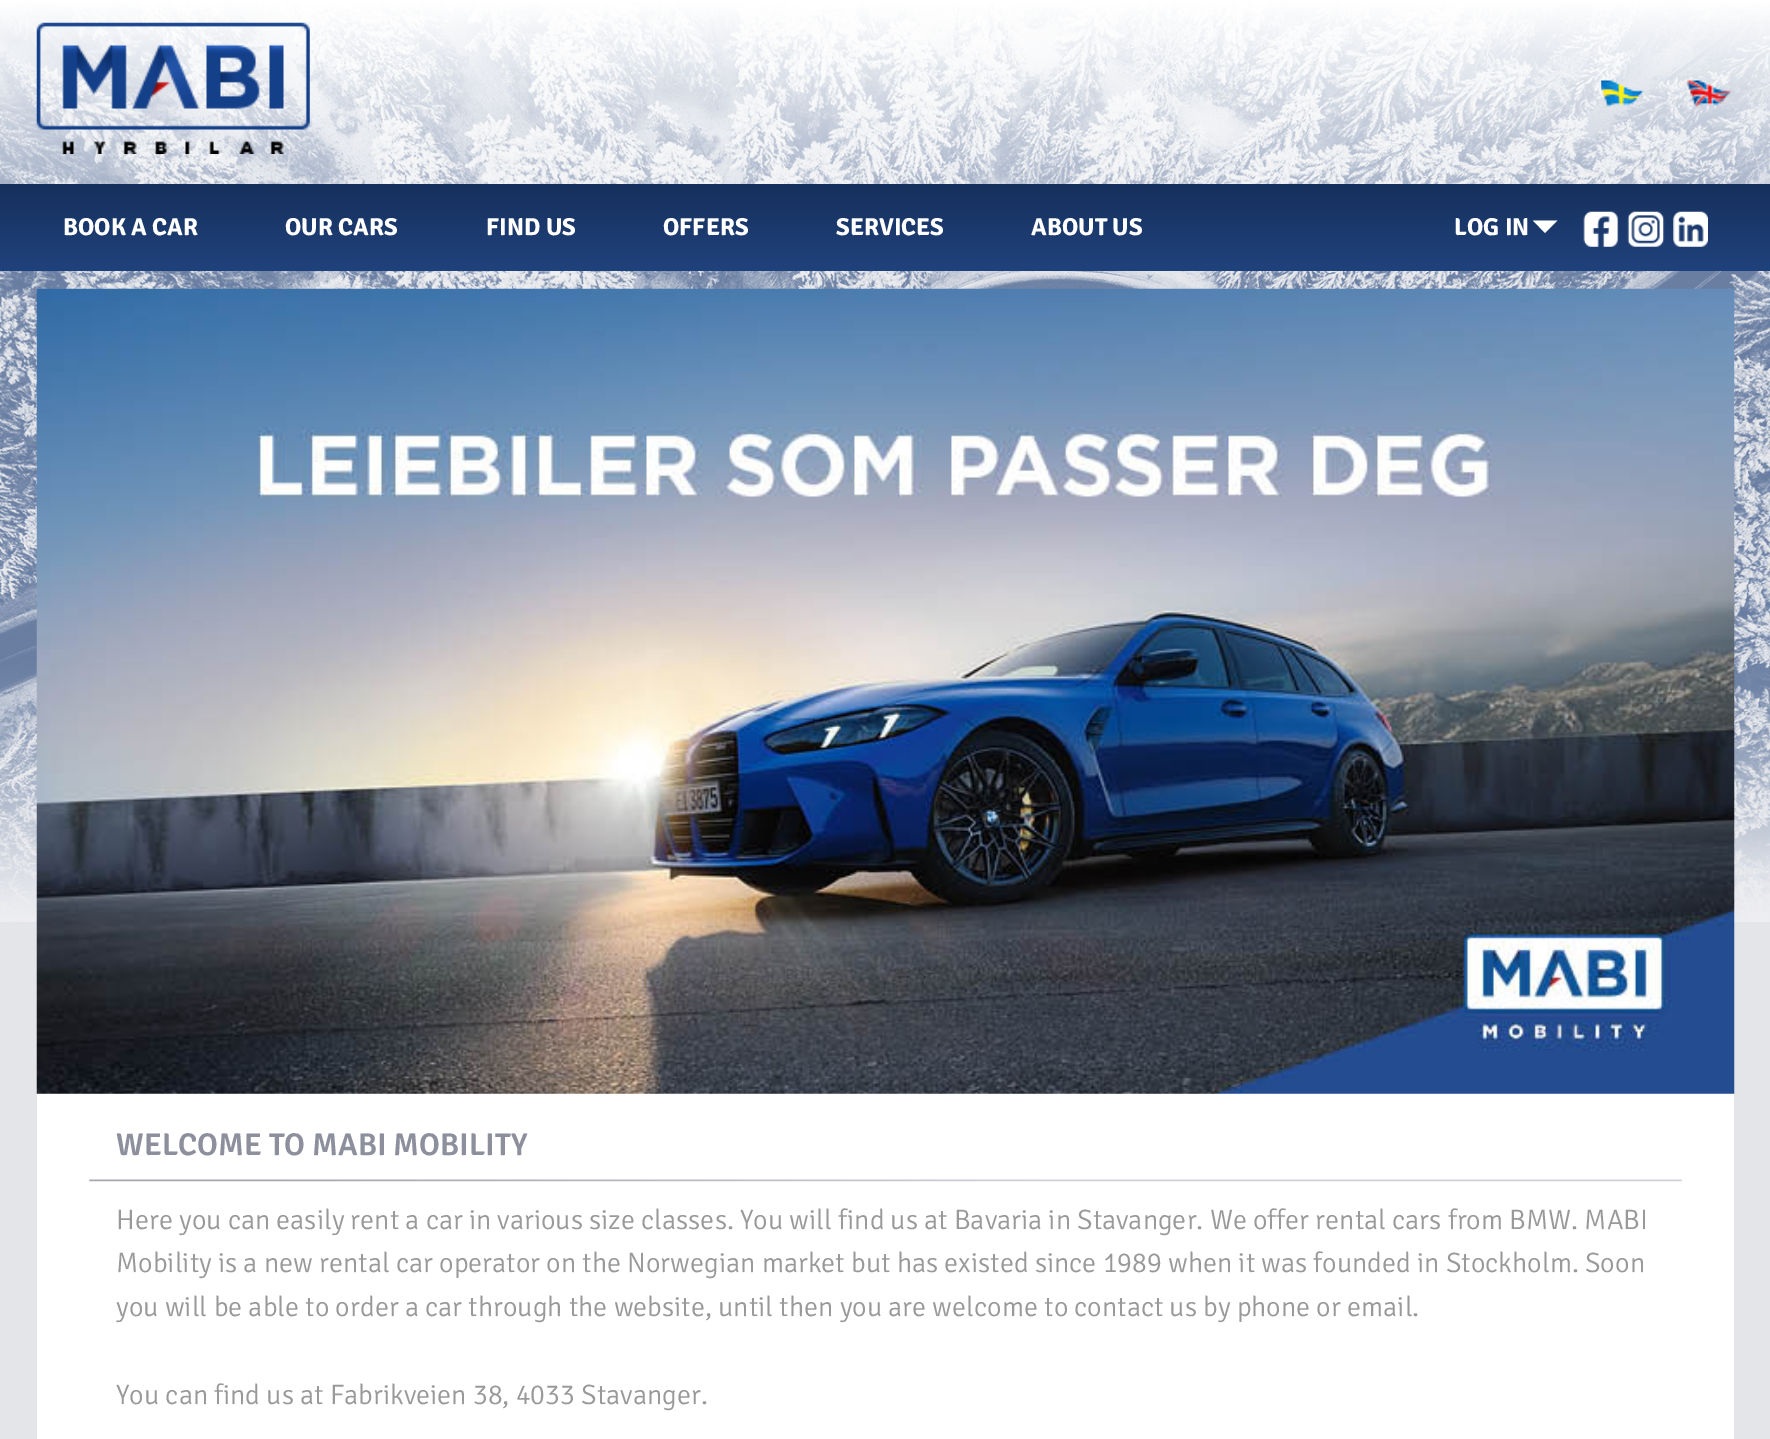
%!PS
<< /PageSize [1770 1439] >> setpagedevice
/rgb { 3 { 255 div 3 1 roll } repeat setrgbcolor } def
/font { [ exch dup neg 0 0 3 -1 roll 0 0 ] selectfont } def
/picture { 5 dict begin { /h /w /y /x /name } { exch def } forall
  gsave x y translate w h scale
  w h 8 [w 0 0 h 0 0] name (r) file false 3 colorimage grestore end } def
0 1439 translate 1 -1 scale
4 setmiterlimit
228 229 233 rgb
0 0 1770 1439 rectfill
(img/1.rgb) 0 0 1770 922 picture
(img/2.rgb) 36 22 274 132 picture
(img/3.rgb) 1601 80 43 28 picture
(img/4.rgb) 1686 80 46 28 picture
gsave 0 184 moveto 1770 184 lineto 1770 271 lineto 0 271 lineto closepath clip newpath
<< /ShadingType 2 /ColorSpace /DeviceRGB /Coords [886 184 886 271] /Extend [true true] /Function << /FunctionType 2 /Domain [0 1] /C0 [0.086 0.188 0.365] /C1 [0.125 0.259 0.486] /N 1 >> >> shfill grestore
255 255 255 rgb
1533 220.5 moveto 1557.5 220.5 lineto 1545 233 lineto closepath fill
(img/5.rgb) 1583 211 36 36 picture
(img/6.rgb) 1627 211 38 36 picture
(img/7.rgb) 1673 211 35 36 picture
37 1093 1697 346 rectfill
(img/8.rgb) 36 288 1699 806 picture
(img/9.rgb) 89 1179 1593 3 picture
/Signika-Bold 24.5 font
[
  [(BOOK A CAR) 63 235]
  [(OUR CARS) 285 235]
  [(FIND US) 486 235]
  [(OFFERS) 663 235]
  [(SERVICES) 836 235]
  [(ABOUT US) 1031 235]
  [(LOG IN) 1454 235]
] { aload pop moveto show } forall
/Signika-SemiBold 31.5 font
141 144 156 rgb
116 1155 moveto (WELCOME TO MABI MOBILITY) show
/Signika-Light 28 font
153 153 153 rgb
[
  [(Here you can easily rent a car in various size classes. You will find us at Bavaria in Stavanger. We offer rental cars from BMW. MABI) 116 1229]
  [(Mobility is a new rental car operator on the Norwegian market but has existed since 1989 when it was founded in Stockholm. Soon) 116 1272]
  [(you will be able to order a car through the website, until then you are welcome to contact us by phone or email.) 116 1316]
  [(You can find us at Fabrikveien 38, 4033 Stavanger.) 116 1404]
] { aload pop moveto show } forall
showpage
